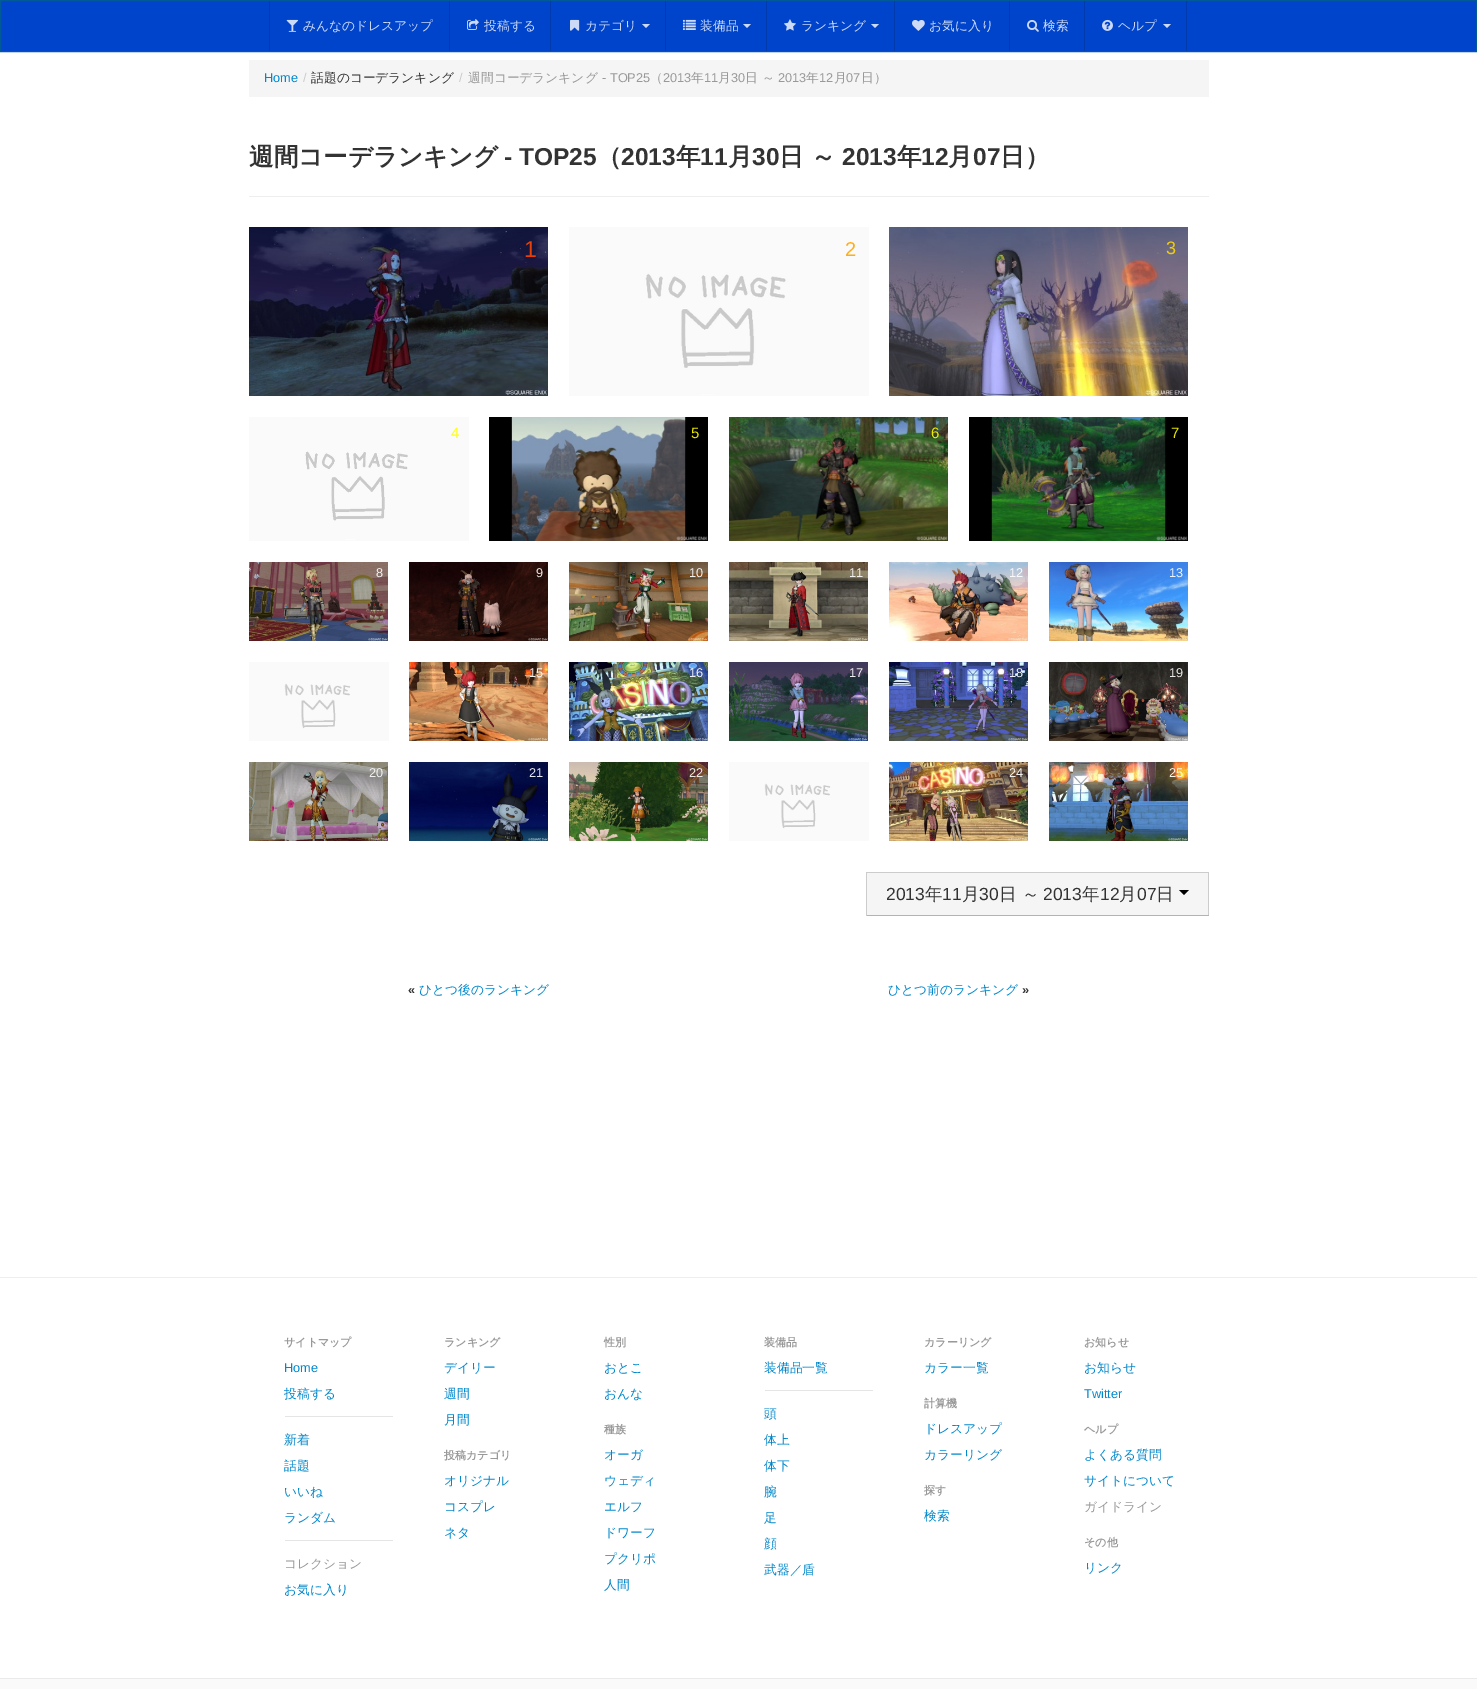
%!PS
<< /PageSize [1477 1689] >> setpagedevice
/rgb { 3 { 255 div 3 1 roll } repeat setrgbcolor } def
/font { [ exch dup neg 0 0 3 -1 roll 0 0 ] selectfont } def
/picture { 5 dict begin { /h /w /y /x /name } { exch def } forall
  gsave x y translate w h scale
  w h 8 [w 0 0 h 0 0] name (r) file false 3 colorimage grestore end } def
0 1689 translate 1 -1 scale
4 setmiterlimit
255 255 255 rgb
0 0 1477 1689 rectfill
0 68 204 rgb
0.5 0.5 moveto 1476.5 0.5 lineto 1476.5 51.5 lineto 0.5 51.5 lineto closepath gsave fill grestore
0 90 150 rgb
stroke
0 58 173 rgb
449 1 1 50 rectfill
269 1 1 50 rectfill
(img/1.rgb) 286 19 13 13 picture
550 1 1 50 rectfill
(img/2.rgb) 467 19 12 11 picture
665 1 1 50 rectfill
(img/3.rgb) 570 19 10 12 picture
204 218 245 rgb
642 24 moveto 650 24 lineto 646 28 lineto closepath fill
0 58 173 rgb
766 1 1 50 rectfill
(img/4.rgb) 683 19 13 11 picture
204 218 245 rgb
743 24 moveto 751 24 lineto 747 28 lineto closepath fill
0 58 173 rgb
894 1 1 50 rectfill
(img/5.rgb) 784 19 12 12 picture
204 218 245 rgb
871 24 moveto 879 24 lineto 875 28 lineto closepath fill
0 58 173 rgb
1009 1 1 50 rectfill
(img/6.rgb) 912 20 13 11 picture
1084 1 1 50 rectfill
(img/7.rgb) 1027 20 12 12 picture
1186 1 1 50 rectfill
(img/8.rgb) 1102 19 11 12 picture
204 218 245 rgb
1163 24 moveto 1171 24 lineto 1167 28 lineto closepath fill
245 245 245 rgb
249 60 960 37 rectfill
238 238 238 rgb
249 196 960 1 rectfill
(img/9.rgb) 249 227 299 169 picture
(img/10.rgb) 569 227 300 169 picture
(img/11.rgb) 889 227 299 169 picture
(img/12.rgb) 249 417 220 124 picture
(img/13.rgb) 489 417 219 124 picture
(img/14.rgb) 729 417 219 124 picture
(img/15.rgb) 969 417 219 124 picture
(img/16.rgb) 249 562 139 79 picture
(img/17.rgb) 409 562 139 79 picture
(img/18.rgb) 569 562 139 79 picture
(img/19.rgb) 729 562 139 79 picture
(img/20.rgb) 889 562 139 79 picture
(img/21.rgb) 1049 562 139 79 picture
(img/22.rgb) 249 662 140 79 picture
(img/23.rgb) 409 662 139 79 picture
(img/24.rgb) 569 662 139 79 picture
(img/25.rgb) 729 662 139 79 picture
(img/26.rgb) 889 662 139 79 picture
(img/27.rgb) 1049 662 139 79 picture
(img/28.rgb) 249 762 139 79 picture
(img/29.rgb) 409 762 139 79 picture
(img/30.rgb) 569 762 139 79 picture
(img/22.rgb) 729 762 140 79 picture
(img/31.rgb) 889 762 139 79 picture
(img/32.rgb) 1049 762 139 79 picture
[
  [867 873 341 42 245 245 245]
  [866 872 343 1 204 204 204]
  [1208 872 1 44 204 204 204]
  [866 915 343 1 179 179 179]
  [866 872 1 44 204 204 204]
] { aload pop rgb rectfill } forall
0 0 0 rgb
1179 890 moveto 1189 890 lineto 1184 895 lineto closepath fill
[
  [0 1277 1477 1 238 238 238]
  [285 1416 108 1 229 229 229]
  [285 1540 108 1 229 229 229]
  [765 1390 108 1 229 229 229]
  [0 1679 1477 10 250 250 250]
  [0 1678 1477 1 234 234 234]
] { aload pop rgb rectfill } forall
/WenQuanYiZenHei-Medium 12.75 font
204 218 245 rgb
[
  [(みんなのドレスアップ) 303 30]
  [(投稿する) 484 30]
  [(カテゴリ) 585 30]
  [(装備品) 700 30]
  [(ランキング) 801 30]
  [(お気に入り) 929 30]
  [(検索) 1043 30]
  [(ヘルプ) 1118 30]
] { aload pop moveto show } forall
/LiberationSans-Regular 12.75 font
0 136 204 rgb
264 82 moveto (Home) show
204 204 204 rgb
303 82 moveto (/) show
/WenQuanYiZenHei-Medium 12.75 font
51 51 51 rgb
311 82 moveto (話題のコーデランキング) show
/LiberationSans-Regular 12.75 font
204 204 204 rgb
459 82 moveto (/) show
/WenQuanYiZenHei-Medium 12.75 font
153 153 153 rgb
468 82 moveto (週間コーデランキング) show
/LiberationSans-Regular 12.75 font
602 82 moveto (- TOP25) show
/WenQuanYiZenHei-Medium 12.75 font
650 82 moveto (（) show
/LiberationSans-Regular 12.75 font
663 82 moveto (2013) show
/WenQuanYiZenHei-Medium 12.75 font
691 82 moveto (年) show
/LiberationSans-Regular 12.75 font
704 82 moveto (11) show
/WenQuanYiZenHei-Medium 12.75 font
718 82 moveto (月) show
/LiberationSans-Regular 12.75 font
731 82 moveto (30) show
/WenQuanYiZenHei-Medium 12.75 font
745 82 moveto (日 ～) show
/LiberationSans-Regular 12.75 font
778 82 moveto (2013) show
/WenQuanYiZenHei-Medium 12.75 font
806 82 moveto (年) show
/LiberationSans-Regular 12.75 font
819 82 moveto (12) show
/WenQuanYiZenHei-Medium 12.75 font
834 82 moveto (月) show
/LiberationSans-Regular 12.75 font
846 82 moveto (07) show
/WenQuanYiZenHei-Medium 12.75 font
861 82 moveto (日）) show
/WenQuanYiZenHei-Bold 24.5 font
51 51 51 rgb
249 165 moveto (週間コーデランキング) show
/LiberationSans-Bold 24.5 font
504 165 moveto (- TOP25) show
/WenQuanYiZenHei-Bold 24.5 font
597 165 moveto (（) show
/LiberationSans-Bold 24.5 font
621 165 moveto (2013) show
/WenQuanYiZenHei-Bold 24.5 font
676 165 moveto (年) show
/LiberationSans-Bold 24.5 font
700 165 moveto (11) show
/WenQuanYiZenHei-Bold 24.5 font
728 165 moveto (月) show
/LiberationSans-Bold 24.5 font
752 165 moveto (30) show
/WenQuanYiZenHei-Bold 24.5 font
779 165 moveto (日) show
811 165 moveto (～) show
/LiberationSans-Bold 24.5 font
842 165 moveto (2013) show
/WenQuanYiZenHei-Bold 24.5 font
897 165 moveto (年) show
/LiberationSans-Bold 24.5 font
921 165 moveto (12) show
/WenQuanYiZenHei-Bold 24.5 font
948 165 moveto (月) show
/LiberationSans-Bold 24.5 font
973 165 moveto (07) show
/WenQuanYiZenHei-Bold 24.5 font
1000 165 moveto (日）) show
/LiberationSans-Regular 23 font
232 64 6 rgb
524 257 moveto (1) show
/LiberationSans-Regular 20 font
255 174 25 rgb
845 256 moveto (2) show
/LiberationSans-Regular 18 font
240 204 13 rgb
1166 254 moveto (3) show
/LiberationSans-Regular 15 font
255 255 25 rgb
451 438 moveto (4) show
230 230 0 rgb
691 438 moveto (5) show
235 236 4 rgb
931 438 moveto (6) show
230 230 0 rgb
1171 438 moveto (7) show
/LiberationSans-Regular 12.75 font
243 241 240 rgb
376 577 moveto (8) show
234 231 230 rgb
536 577 moveto (9) show
243 241 240 rgb
689 577 moveto (10) show
849 577 moveto (11) show
248 249 251 rgb
1009 577 moveto (12) show
236 243 253 rgb
1169 577 moveto (13) show
243 241 240 rgb
529 677 moveto (15) show
236 239 244 rgb
689 677 moveto (16) show
236 235 238 rgb
849 677 moveto (17) show
236 239 244 rgb
1009 677 moveto (18) show
234 231 230 rgb
1169 677 moveto (19) show
243 241 240 rgb
369 777 moveto (20) show
230 231 236 rgb
529 777 moveto (21) show
234 231 230 rgb
689 777 moveto (22) show
243 241 240 rgb
1009 777 moveto (24) show
249 244 234 rgb
1169 777 moveto (25) show
/LiberationSans-Regular 17.5 font
51 51 51 rgb
886 900 moveto (2013) show
/WenQuanYiZenHei-Medium 17.5 font
925 900 moveto (年) show
/LiberationSans-Regular 17.5 font
942 900 moveto (11) show
/WenQuanYiZenHei-Medium 17.5 font
962 900 moveto (月) show
/LiberationSans-Regular 17.5 font
979 900 moveto (30) show
/WenQuanYiZenHei-Medium 17.5 font
999 900 moveto (日 ～) show
/LiberationSans-Regular 17.5 font
1043 900 moveto (2013) show
/WenQuanYiZenHei-Medium 17.5 font
1082 900 moveto (年) show
/LiberationSans-Regular 17.5 font
1100 900 moveto (12) show
/WenQuanYiZenHei-Medium 17.5 font
1119 900 moveto (月) show
/LiberationSans-Regular 17.5 font
1137 900 moveto (07) show
/WenQuanYiZenHei-Medium 17.5 font
1156 900 moveto (日) show
/LiberationSans-Bold 12.75 font
408 994 moveto («) show
/WenQuanYiZenHei-Medium 12.75 font
0 136 204 rgb
419 994 moveto (ひとつ後のランキング) show
888 994 moveto (ひとつ前のランキング) show
/LiberationSans-Bold 12.75 font
51 51 51 rgb
1022 994 moveto (») show
/WenQuanYiZenHei-Bold 11 font
153 153 153 rgb
284 1346 moveto (サイトマップ) show
/LiberationSans-Regular 12.75 font
0 136 204 rgb
284 1372 moveto (Home) show
/WenQuanYiZenHei-Medium 12.75 font
[
  [(投稿する) 284 1398]
  [(新着) 284 1444]
  [(話題) 284 1470]
  [(いいね) 284 1496]
  [(ランダム) 284 1522]
] { aload pop moveto show } forall
153 153 153 rgb
284 1568 moveto (コレクション) show
0 136 204 rgb
284 1594 moveto (お気に入り) show
/WenQuanYiZenHei-Bold 11 font
153 153 153 rgb
444 1346 moveto (ランキング) show
/WenQuanYiZenHei-Medium 12.75 font
0 136 204 rgb
[
  [(デイリー) 444 1372]
  [(週間) 444 1398]
  [(月間) 444 1424]
] { aload pop moveto show } forall
/WenQuanYiZenHei-Bold 11 font
153 153 153 rgb
444 1459 moveto (投稿カテゴリ) show
/WenQuanYiZenHei-Medium 12.75 font
0 136 204 rgb
[
  [(オリジナル) 444 1485]
  [(コスプレ) 444 1511]
  [(ネタ) 444 1537]
] { aload pop moveto show } forall
/WenQuanYiZenHei-Bold 11 font
153 153 153 rgb
604 1346 moveto (性別) show
/WenQuanYiZenHei-Medium 12.75 font
0 136 204 rgb
604 1372 moveto (おとこ) show
604 1398 moveto (おんな) show
/WenQuanYiZenHei-Bold 11 font
153 153 153 rgb
604 1433 moveto (種族) show
/WenQuanYiZenHei-Medium 12.75 font
0 136 204 rgb
[
  [(オーガ) 604 1459]
  [(ウェディ) 604 1485]
  [(エルフ) 604 1511]
  [(ドワーフ) 604 1537]
  [(プクリポ) 604 1563]
  [(人間) 604 1589]
] { aload pop moveto show } forall
/WenQuanYiZenHei-Bold 11 font
153 153 153 rgb
764 1346 moveto (装備品) show
/WenQuanYiZenHei-Medium 12.75 font
0 136 204 rgb
[
  [(装備品一覧) 764 1372]
  [(頭) 764 1418]
  [(体上) 764 1444]
  [(体下) 764 1470]
  [(腕) 764 1496]
  [(足) 764 1522]
  [(顔) 764 1548]
  [(武器／盾) 764 1574]
] { aload pop moveto show } forall
/WenQuanYiZenHei-Bold 11 font
153 153 153 rgb
924 1346 moveto (カラーリング) show
/WenQuanYiZenHei-Medium 12.75 font
0 136 204 rgb
924 1372 moveto (カラー一覧) show
/WenQuanYiZenHei-Bold 11 font
153 153 153 rgb
924 1407 moveto (計算機) show
/WenQuanYiZenHei-Medium 12.75 font
0 136 204 rgb
924 1433 moveto (ドレスアップ) show
924 1459 moveto (カラーリング) show
/WenQuanYiZenHei-Bold 11 font
153 153 153 rgb
924 1494 moveto (探す) show
/WenQuanYiZenHei-Medium 12.75 font
0 136 204 rgb
924 1520 moveto (検索) show
/WenQuanYiZenHei-Bold 11 font
153 153 153 rgb
1084 1346 moveto (お知らせ) show
/WenQuanYiZenHei-Medium 12.75 font
0 136 204 rgb
1084 1372 moveto (お知らせ) show
/LiberationSans-Regular 12.75 font
1084 1398 moveto (Twitter) show
/WenQuanYiZenHei-Bold 11 font
153 153 153 rgb
1084 1433 moveto (ヘルプ) show
/WenQuanYiZenHei-Medium 12.75 font
0 136 204 rgb
1084 1459 moveto (よくある質問) show
1084 1485 moveto (サイトについて) show
153 153 153 rgb
1084 1511 moveto (ガイドライン) show
/WenQuanYiZenHei-Bold 11 font
1084 1546 moveto (その他) show
/WenQuanYiZenHei-Medium 12.75 font
0 136 204 rgb
1084 1572 moveto (リンク) show
showpage
